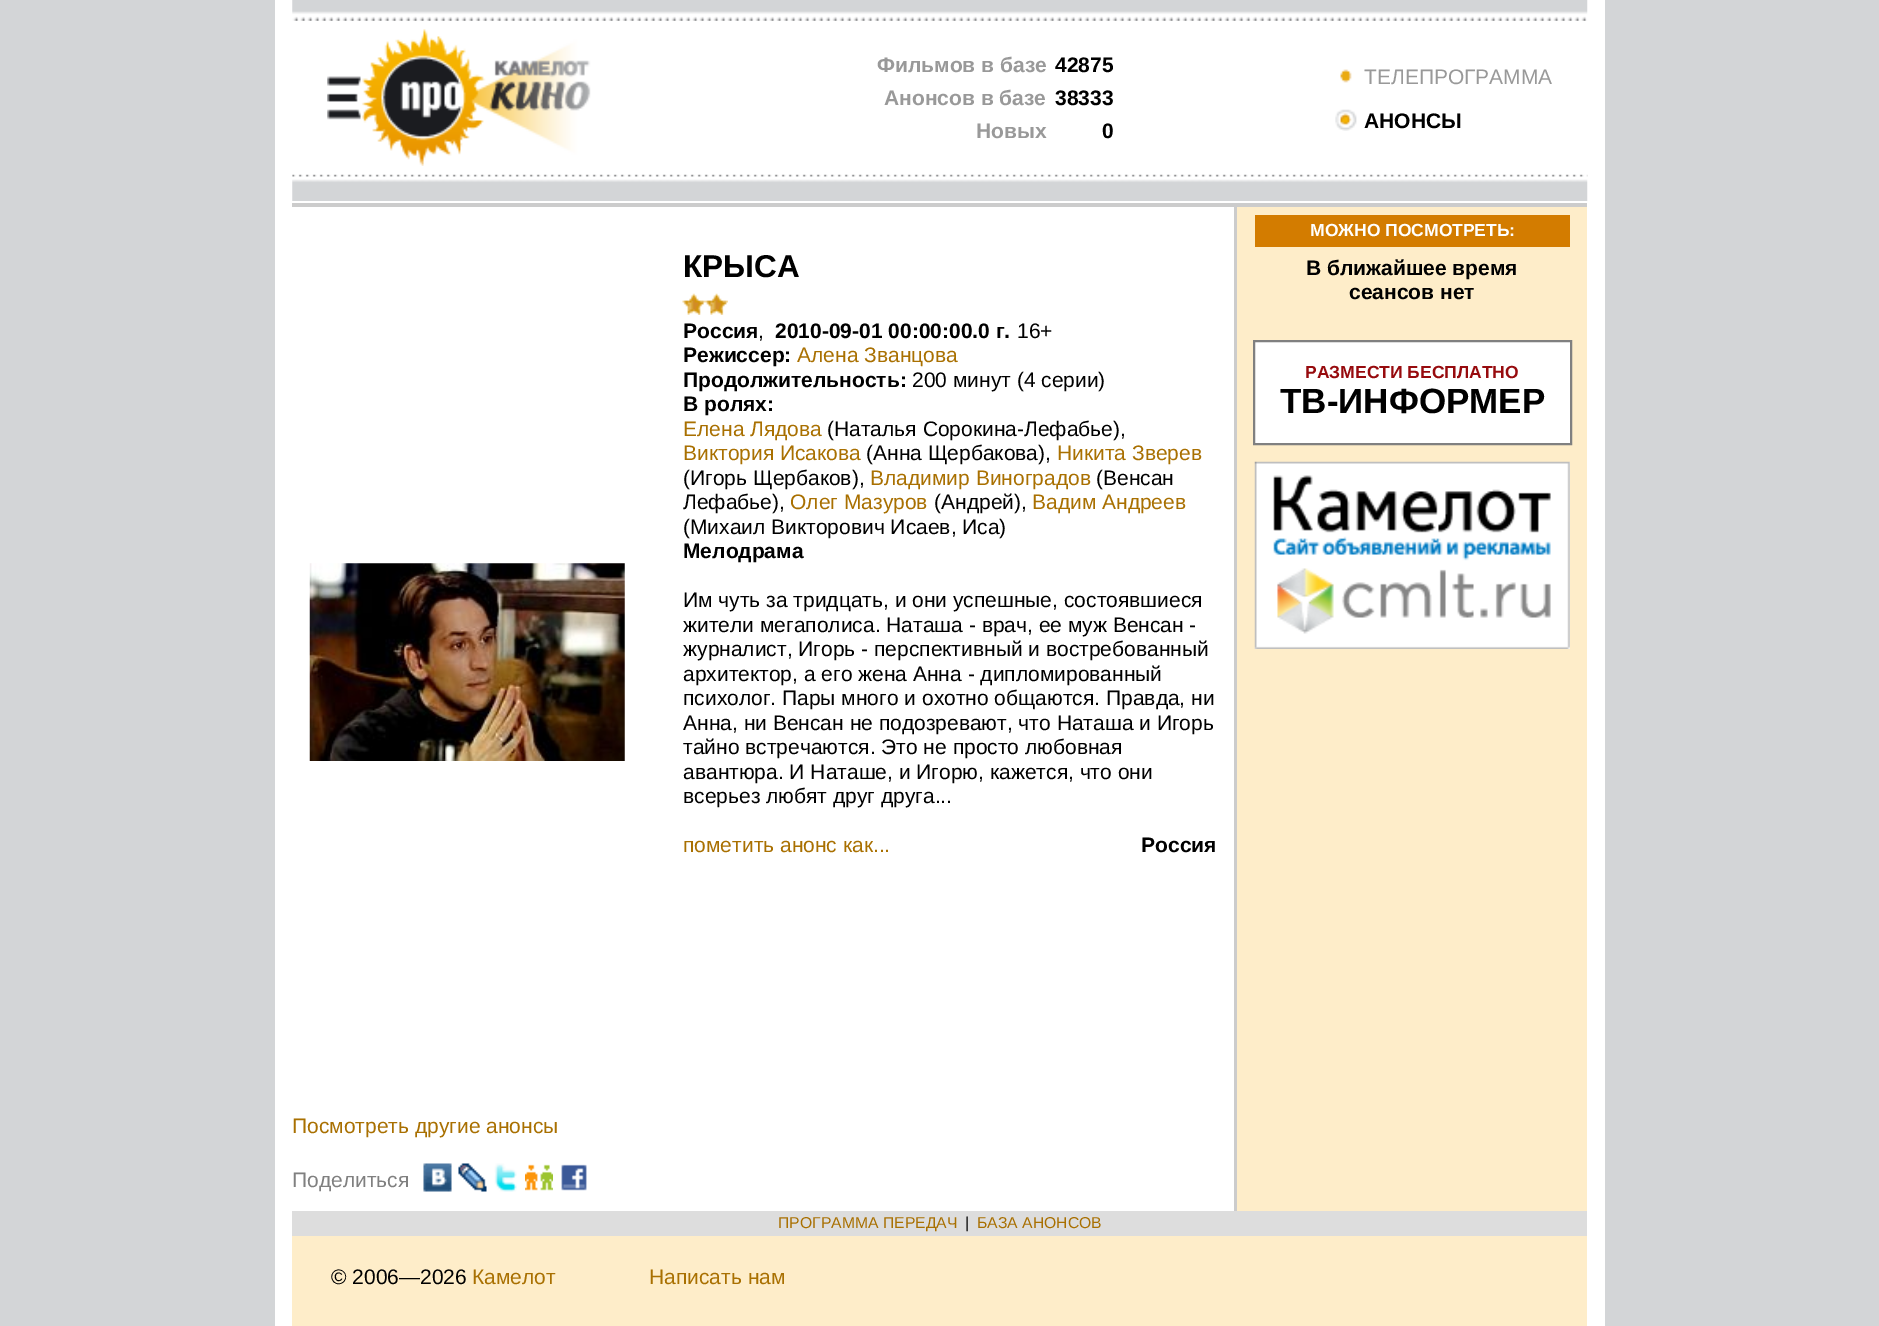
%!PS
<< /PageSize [1879 1326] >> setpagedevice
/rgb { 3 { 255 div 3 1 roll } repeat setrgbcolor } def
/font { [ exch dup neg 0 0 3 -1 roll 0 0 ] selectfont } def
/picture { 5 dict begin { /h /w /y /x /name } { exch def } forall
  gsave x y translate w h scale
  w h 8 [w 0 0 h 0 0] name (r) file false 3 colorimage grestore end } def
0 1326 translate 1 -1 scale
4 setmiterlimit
211 213 215 rgb
0 0 1879 1326 rectfill
255 255 255 rgb
275 0 1330 1326 rectfill
(img/1.rgb) 292 0 1296 21 picture
(img/2.rgb) 327 29 264 137 picture
(img/3.rgb) 1340 69 12 14 picture
(img/4.rgb) 1335 109 22 22 picture
(img/5.rgb) 292 174 1296 27 picture
204 204 204 rgb
292 203 1295 4 rectfill
1234 203 3 1008 rectfill
(img/6.rgb) 309 563 316 198 picture
(img/7.rgb) 682 293 46 22 picture
(img/8.rgb) 423 1163 29 29 picture
(img/9.rgb) 458 1163 29 29 picture
(img/10.rgb) 494 1163 23 29 picture
(img/11.rgb) 525 1164 28 27 picture
(img/12.rgb) 561 1164 26 27 picture
254 237 201 rgb
1237 207 350 1004 rectfill
211 124 0 rgb
1255 215 315 32 rectfill
255 255 255 rgb
1254 341 moveto 1571 341 lineto 1571 444 lineto 1254 444 lineto closepath gsave fill grestore
128 128 128 rgb
2 setlinewidth
stroke
(img/13.rgb) 1254 461 316 188 picture
221 221 221 rgb
292 1211 1295 25 rectfill
254 237 201 rgb
292 1236 1295 90 rectfill
/LiberationSans-Bold 21 font
153 153 153 rgb
877 72 moveto (Фильмов в базе) show
0 0 0 rgb
1055 72 moveto (42875) show
153 153 153 rgb
884 105 moveto (Анонсов в базе) show
0 0 0 rgb
1055 105 moveto (38333) show
153 153 153 rgb
976 138 moveto (Новых) show
0 0 0 rgb
1102 138 moveto (0) show
/LiberationSans-Regular 21 font
153 153 153 rgb
1364 84 moveto (ТЕЛЕПРОГРАММА) show
/LiberationSans-Bold 21 font
0 0 0 rgb
1364 128 moveto (АНОНСЫ) show
/LiberationSans-Bold 31.5 font
683 277 moveto (КРЫСА) show
/LiberationSans-Bold 21 font
683 338 moveto (Россия) show
/LiberationSans-Regular 21 font
758 338 moveto (,) show
/LiberationSans-Bold 21 font
775 338 moveto (2010-09-01 00:00:00.0 г.) show
/LiberationSans-Regular 21 font
1017 338 moveto (16+) show
/LiberationSans-Bold 21 font
683 362 moveto (Режиссер:) show
/LiberationSans-Regular 21 font
169 112 1 rgb
797 362 moveto (Алена Званцова) show
/LiberationSans-Bold 21 font
0 0 0 rgb
683 387 moveto (Продолжительность:) show
/LiberationSans-Regular 21 font
912 387 moveto (200 минут \(4 серии\)) show
/LiberationSans-Bold 21 font
683 411 moveto (В ролях:) show
/LiberationSans-Regular 21 font
169 112 1 rgb
683 436 moveto (Елена Лядова) show
0 0 0 rgb
827 436 moveto (\(Наталья Сорокина-Лефабье\),) show
169 112 1 rgb
683 460 moveto (Виктория Исакова) show
0 0 0 rgb
866 460 moveto (\(Анна Щербакова\),) show
169 112 1 rgb
1057 460 moveto (Никита Зверев) show
0 0 0 rgb
683 485 moveto (\(Игорь Щербаков\),) show
169 112 1 rgb
870 485 moveto (Владимир Виноградов) show
0 0 0 rgb
1096 485 moveto (\(Венсан) show
683 509 moveto (Лефабье\),) show
169 112 1 rgb
790 509 moveto (Олег Мазуров) show
0 0 0 rgb
934 509 moveto (\(Андрей\),) show
169 112 1 rgb
1032 509 moveto (Вадим Андреев) show
0 0 0 rgb
683 534 moveto (\(Михаил Викторович Исаев, Иса\)) show
/LiberationSans-Bold 21 font
683 558 moveto (Мелодрама) show
/LiberationSans-Regular 21 font
[
  [(Им чуть за тридцать, и они успешные, состоявшиеся) 683 607]
  [(жители мегаполиса. Наташа - врач, ее муж Венсан -) 683 632]
  [(журналист, Игорь - перспективный и востребованный) 683 656]
  [(архитектор, а его жена Анна - дипломированный) 683 681]
  [(психолог. Пары много и охотно общаются. Правда, ни) 683 705]
  [(Анна, ни Венсан не подозревают, что Наташа и Игорь) 683 730]
  [(тайно встречаются. Это не просто любовная) 683 754]
  [(авантюра. И Наташе, и Игорю, кажется, что они) 683 779]
  [(всерьез любят друг друга...) 683 803]
] { aload pop moveto show } forall
169 112 1 rgb
683 852 moveto (пометить анонс как...) show
/LiberationSans-Bold 21 font
0 0 0 rgb
1141 852 moveto (Россия) show
/LiberationSans-Regular 21 font
169 112 1 rgb
292 1133 moveto (Посмотреть другие анонсы) show
128 128 128 rgb
292 1187 moveto (Поделиться) show
/LiberationSans-Bold 17.5 font
255 255 255 rgb
1310 236 moveto (МОЖНО ПОСМОТРЕТЬ:) show
/LiberationSans-Bold 21 font
0 0 0 rgb
1306 275 moveto (В ближайшее время) show
1349 299 moveto (сеансов нет) show
/LiberationSans-Bold 17.5 font
151 11 14 rgb
1305 378 moveto (РАЗМЕСТИ БЕСПЛАТНО) show
/LiberationSans-Bold 35 font
0 0 0 rgb
1280 413 moveto (ТВ-ИНФОРМЕР) show
/LiberationSans-Regular 15.75 font
169 112 1 rgb
778 1228 moveto (ПРОГРАММА ПЕРЕДАЧ) show
0 0 0 rgb
965 1228 moveto (|) show
169 112 1 rgb
977 1228 moveto (БАЗА АНОНСОВ) show
/LiberationSans-Regular 21 font
0 0 0 rgb
331 1284 moveto (© 2006—2026) show
169 112 1 rgb
472 1284 moveto (Камелот) show
649 1284 moveto (Написать нам) show
showpage
